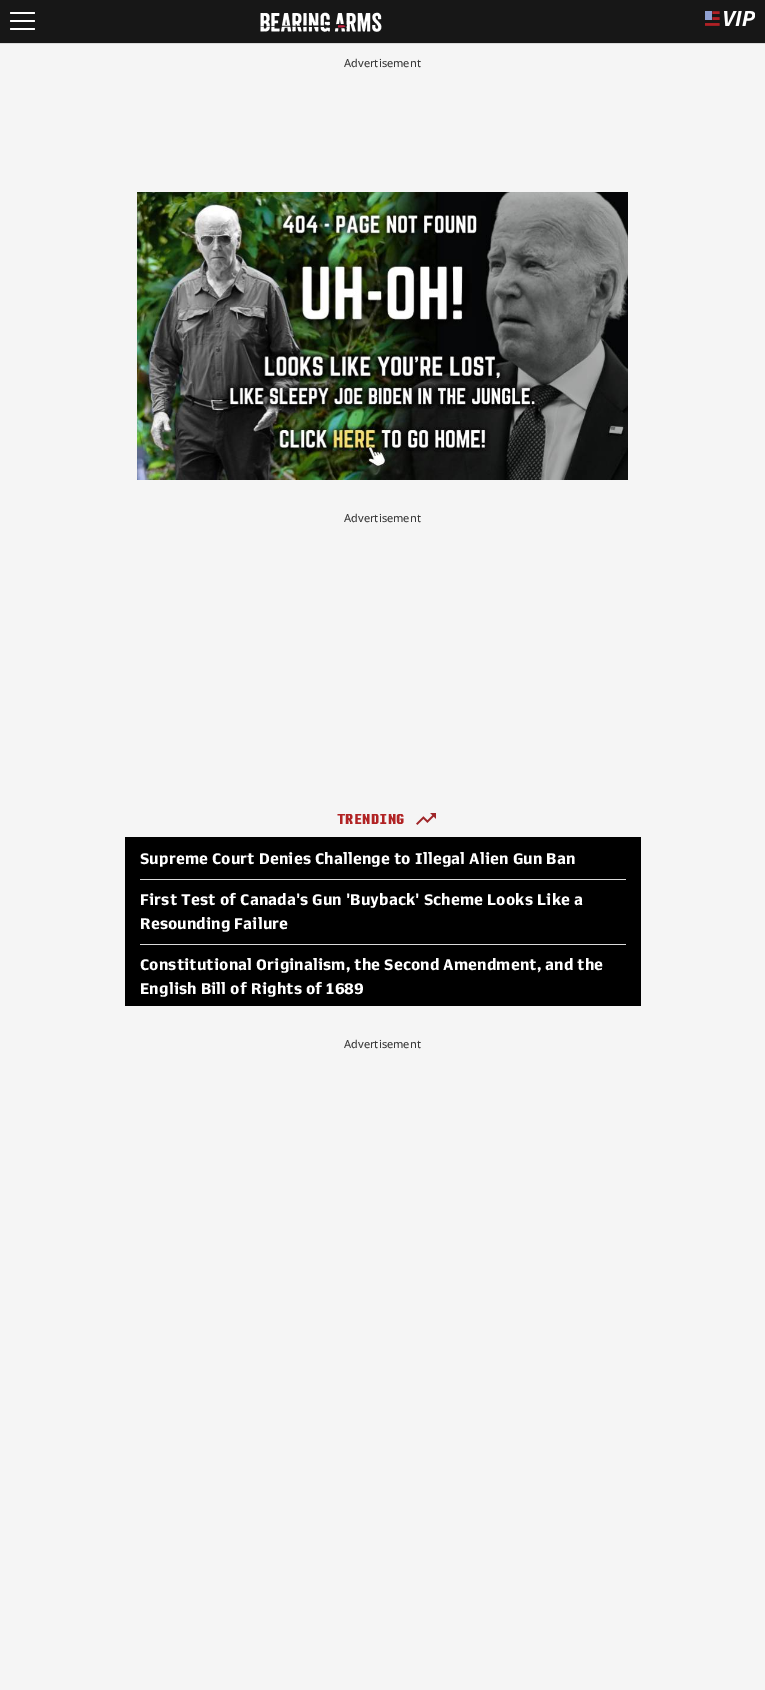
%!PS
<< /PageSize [765 1690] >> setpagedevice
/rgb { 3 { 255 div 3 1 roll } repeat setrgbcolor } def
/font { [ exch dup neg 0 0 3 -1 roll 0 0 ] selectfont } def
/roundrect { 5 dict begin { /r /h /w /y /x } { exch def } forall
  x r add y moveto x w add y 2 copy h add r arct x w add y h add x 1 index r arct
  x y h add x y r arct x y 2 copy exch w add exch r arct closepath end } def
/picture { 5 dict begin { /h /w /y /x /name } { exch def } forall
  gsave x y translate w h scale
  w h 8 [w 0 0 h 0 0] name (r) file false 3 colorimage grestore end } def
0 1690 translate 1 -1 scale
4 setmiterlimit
245 245 245 rgb
0 0 765 1690 rectfill
23 23 23 rgb
0 0 765 43 rectfill
218 218 218 rgb
0 43 765 1 rectfill
255 255 255 rgb
10 28 25 2 1 roundrect fill
10 12 25 2 1 roundrect fill
10 20 25 2 1 roundrect fill
(img/1.rgb) 260 12 122 20 picture
(img/2.rgb) 705 11 50 15 picture
(img/3.rgb) 137 192 491 288 picture
(img/4.rgb) 416 813 20 12 picture
[
  [125 837 516 169 0 0 0]
  [140 879 486 1 218 218 218]
  [140 944 486 1 218 218 218]
] { aload pop rgb rectfill } forall
/OpenSans-Medium 11 font
57 57 57 rgb
344 67 moveto (Advertisement) show
344 522 moveto (Advertisement) show
/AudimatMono-Bold 16 font
177 35 36 rgb
337 824 moveto (TRENDING) show
/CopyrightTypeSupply-Bold 16 font
255 255 255 rgb
[
  [(Supreme Court Denies Challenge to Illegal Alien Gun Ban) 140 864]
  [(First Test of Canada's Gun 'Buyback' Scheme Looks Like a) 140 905]
  [(Resounding Failure) 140 929]
  [(Constitutional Originalism, the Second Amendment, and the) 140 970]
  [(English Bill of Rights of 1689) 140 994]
] { aload pop moveto show } forall
/OpenSans-Medium 11 font
57 57 57 rgb
344 1048 moveto (Advertisement) show
showpage
